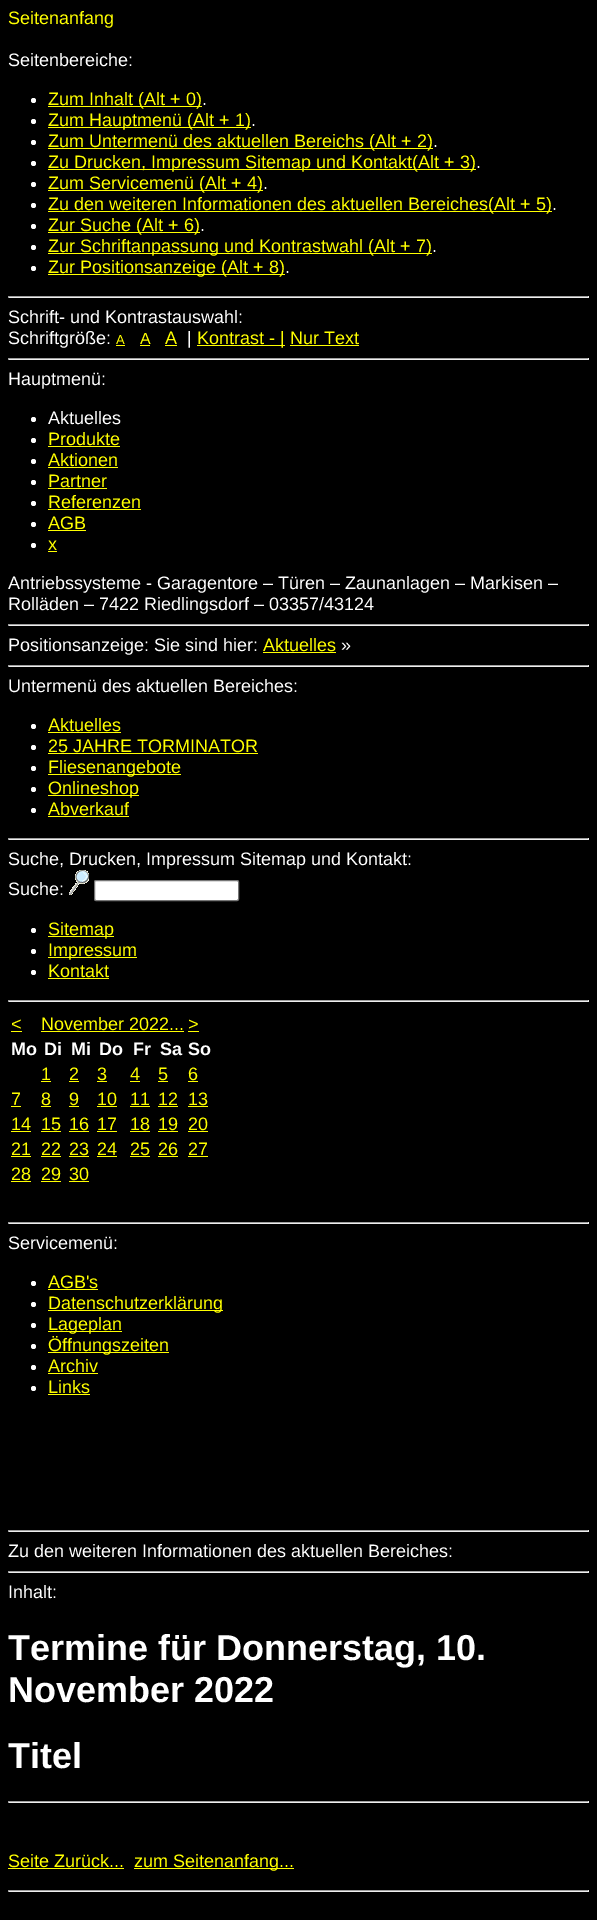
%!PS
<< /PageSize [597 1920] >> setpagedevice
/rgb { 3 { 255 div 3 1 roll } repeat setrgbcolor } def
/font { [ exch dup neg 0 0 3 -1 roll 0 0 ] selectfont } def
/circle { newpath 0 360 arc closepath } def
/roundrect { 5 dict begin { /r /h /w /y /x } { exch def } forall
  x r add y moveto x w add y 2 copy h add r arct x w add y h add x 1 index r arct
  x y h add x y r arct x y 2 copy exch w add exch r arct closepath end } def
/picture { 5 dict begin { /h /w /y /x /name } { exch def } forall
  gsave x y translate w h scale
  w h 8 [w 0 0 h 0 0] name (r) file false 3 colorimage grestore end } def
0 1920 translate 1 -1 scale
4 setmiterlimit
0 0 0 rgb
0 0 597 1920 rectfill
255 255 255 rgb
33.5 100.5 2.5 circle fill
255 255 0 rgb
48 106 154 1 rectfill
255 255 255 rgb
33.5 121.5 2.5 circle fill
255 255 0 rgb
48 127 203 1 rectfill
255 255 255 rgb
33.5 142.5 2.5 circle fill
255 255 0 rgb
48 148 385 1 rectfill
255 255 255 rgb
33.5 163.5 2.5 circle fill
255 255 0 rgb
48 169 428 1 rectfill
255 255 255 rgb
33.5 184.5 2.5 circle fill
255 255 0 rgb
48 190 215 1 rectfill
255 255 255 rgb
33.5 205.5 2.5 circle fill
255 255 0 rgb
48 211 504 1 rectfill
255 255 255 rgb
33.5 226.5 2.5 circle fill
255 255 0 rgb
48 232 152 1 rectfill
255 255 255 rgb
33.5 247.5 2.5 circle fill
255 255 0 rgb
48 253 384 1 rectfill
255 255 255 rgb
33.5 268.5 2.5 circle fill
[
  [48 274 237 1 255 255 0]
  [8 296 581 1 159 159 159]
  [588 296 1 2 238 238 238]
  [8 297 581 1 238 238 238]
  [8 296 1 2 159 159 159]
  [116 345 9 1 255 255 0]
  [140 345 10 1 255 255 0]
  [165 345 12 1 255 255 0]
  [197 345 88 1 255 255 0]
  [290 345 69 1 255 255 0]
  [8 358 581 1 159 159 159]
  [588 358 1 2 238 238 238]
  [8 359 581 1 238 238 238]
  [8 358 1 2 159 159 159]
] { aload pop rgb rectfill } forall
255 255 255 rgb
33.5 419.5 2.5 circle fill
33.5 440.5 2.5 circle fill
255 255 0 rgb
48 446 72 1 rectfill
255 255 255 rgb
33.5 461.5 2.5 circle fill
255 255 0 rgb
48 467 70 1 rectfill
255 255 255 rgb
33.5 482.5 2.5 circle fill
255 255 0 rgb
48 488 59 1 rectfill
255 255 255 rgb
33.5 503.5 2.5 circle fill
255 255 0 rgb
48 509 93 1 rectfill
255 255 255 rgb
33.5 524.5 2.5 circle fill
255 255 0 rgb
48 530 38 1 rectfill
255 255 255 rgb
33.5 545.5 2.5 circle fill
[
  [48 551 9 1 255 255 0]
  [8 624 581 1 159 159 159]
  [588 624 1 2 238 238 238]
  [8 625 581 1 238 238 238]
  [8 624 1 2 159 159 159]
  [263 652 73 1 255 255 0]
  [8 665 581 1 159 159 159]
  [588 665 1 2 238 238 238]
  [8 666 581 1 238 238 238]
  [8 665 1 2 159 159 159]
] { aload pop rgb rectfill } forall
255 255 255 rgb
33.5 726.5 2.5 circle fill
255 255 0 rgb
48 732 73 1 rectfill
255 255 255 rgb
33.5 747.5 2.5 circle fill
255 255 0 rgb
48 753 210 1 rectfill
255 255 255 rgb
33.5 768.5 2.5 circle fill
255 255 0 rgb
48 774 133 1 rectfill
255 255 255 rgb
33.5 789.5 2.5 circle fill
255 255 0 rgb
48 795 91 1 rectfill
255 255 255 rgb
33.5 810.5 2.5 circle fill
[
  [48 816 81 1 255 255 0]
  [8 838 581 1 159 159 159]
  [588 838 1 2 238 238 238]
  [8 839 581 1 238 238 238]
  [8 838 1 2 159 159 159]
] { aload pop rgb rectfill } forall
(img/1.rgb) 69 870 20 25 picture
255 255 255 rgb
94.5 880.5 144 20 1.5 roundrect gsave fill grestore
118 118 118 rgb
stroke
255 255 255 rgb
33.5 930.5 2.5 circle fill
255 255 0 rgb
48 936 66 1 rectfill
255 255 255 rgb
33.5 951.5 2.5 circle fill
255 255 0 rgb
48 957 89 1 rectfill
255 255 255 rgb
33.5 972.5 2.5 circle fill
[
  [48 978 61 1 255 255 0]
  [8 1000 581 1 159 159 159]
  [588 1000 1 2 238 238 238]
  [8 1001 581 1 238 238 238]
  [8 1000 1 2 159 159 159]
  [11 1031 11 1 255 255 0]
  [41 1031 143 1 255 255 0]
  [188 1031 11 1 255 255 0]
  [41 1081 10 1 255 255 0]
  [69 1081 10 1 255 255 0]
  [97 1081 10 1 255 255 0]
  [130 1081 10 1 255 255 0]
  [158 1081 10 1 255 255 0]
  [188 1081 10 1 255 255 0]
  [11 1106 10 1 255 255 0]
  [41 1106 10 1 255 255 0]
  [69 1106 10 1 255 255 0]
  [97 1106 20 1 255 255 0]
  [130 1106 20 1 255 255 0]
  [158 1106 20 1 255 255 0]
  [188 1106 20 1 255 255 0]
  [11 1131 20 1 255 255 0]
  [41 1131 20 1 255 255 0]
  [69 1131 20 1 255 255 0]
  [97 1131 20 1 255 255 0]
  [130 1131 20 1 255 255 0]
  [158 1131 20 1 255 255 0]
  [188 1131 20 1 255 255 0]
  [11 1156 20 1 255 255 0]
  [41 1156 20 1 255 255 0]
  [69 1156 20 1 255 255 0]
  [97 1156 20 1 255 255 0]
  [130 1156 20 1 255 255 0]
  [158 1156 20 1 255 255 0]
  [188 1156 20 1 255 255 0]
  [11 1181 20 1 255 255 0]
  [41 1181 20 1 255 255 0]
  [69 1181 20 1 255 255 0]
  [8 1222 581 1 159 159 159]
  [588 1222 1 2 238 238 238]
  [8 1223 581 1 238 238 238]
  [8 1222 1 2 159 159 159]
] { aload pop rgb rectfill } forall
255 255 255 rgb
33.5 1283.5 2.5 circle fill
255 255 0 rgb
48 1289 50 1 rectfill
255 255 255 rgb
33.5 1304.5 2.5 circle fill
255 255 0 rgb
48 1310 175 1 rectfill
255 255 255 rgb
33.5 1325.5 2.5 circle fill
255 255 0 rgb
48 1331 74 1 rectfill
255 255 255 rgb
33.5 1346.5 2.5 circle fill
255 255 0 rgb
48 1352 121 1 rectfill
255 255 255 rgb
33.5 1367.5 2.5 circle fill
255 255 0 rgb
48 1373 50 1 rectfill
255 255 255 rgb
33.5 1388.5 2.5 circle fill
[
  [48 1394 42 1 255 255 0]
  [8 1530 581 1 159 159 159]
  [588 1530 1 2 238 238 238]
  [8 1531 581 1 238 238 238]
  [8 1530 1 2 159 159 159]
  [8 1571 581 1 159 159 159]
  [588 1571 1 2 238 238 238]
  [8 1572 581 1 238 238 238]
  [8 1571 1 2 159 159 159]
  [8 1801 581 1 159 159 159]
  [588 1801 1 2 238 238 238]
  [8 1802 581 1 238 238 238]
  [8 1801 1 2 159 159 159]
  [8 1868 116 1 255 255 0]
  [134 1868 160 1 255 255 0]
  [8 1890 581 1 159 159 159]
  [588 1890 1 2 238 238 238]
  [8 1891 581 1 238 238 238]
  [8 1890 1 2 159 159 159]
] { aload pop rgb rectfill } forall
/LiberationSans-Regular 18 font
255 255 0 rgb
8 24 moveto (Seitenanfang) show
255 255 255 rgb
8 66 moveto (Seitenbereiche:) show
255 255 0 rgb
48 105 moveto (Zum Inhalt \(Alt + 0\)) show
255 255 255 rgb
202 105 moveto (.) show
255 255 0 rgb
48 126 moveto (Zum Hauptmenü \(Alt + 1\)) show
255 255 255 rgb
251 126 moveto (.) show
255 255 0 rgb
48 147 moveto (Zum Untermenü des aktuellen Bereichs \(Alt + 2\)) show
255 255 255 rgb
433 147 moveto (.) show
255 255 0 rgb
48 168 moveto (Zu Drucken, Impressum Sitemap und Kontakt\(Alt + 3\)) show
255 255 255 rgb
476 168 moveto (.) show
255 255 0 rgb
48 189 moveto (Zum Servicemenü \(Alt + 4\)) show
255 255 255 rgb
263 189 moveto (.) show
255 255 0 rgb
48 210 moveto (Zu den weiteren Informationen des aktuellen Bereiches\(Alt + 5\)) show
255 255 255 rgb
552 210 moveto (.) show
255 255 0 rgb
48 231 moveto (Zur Suche \(Alt + 6\)) show
255 255 255 rgb
200 231 moveto (.) show
255 255 0 rgb
48 252 moveto (Zur Schriftanpassung und Kontrastwahl \(Alt + 7\)) show
255 255 255 rgb
432 252 moveto (.) show
255 255 0 rgb
48 273 moveto (Zur Positionsanzeige \(Alt + 8\)) show
255 255 255 rgb
[
  [(.) 285 273]
  [(Schrift- und Kontrastauswahl:) 8 323]
  [(Schriftgröße:) 8 344]
] { aload pop moveto show } forall
/LiberationSans-Regular 13 font
255 255 0 rgb
116 344 moveto (A) show
/LiberationSans-Regular 16 font
140 344 moveto (A) show
/LiberationSans-Regular 18 font
165 344 moveto (A) show
255 255 255 rgb
187 344 moveto (|) show
255 255 0 rgb
197 344 moveto (Kontrast - | Nur Text) show
255 255 255 rgb
8 385 moveto (Hauptmenü:) show
48 424 moveto (Aktuelles) show
255 255 0 rgb
[
  [(Produkte) 48 445]
  [(Aktionen) 48 466]
  [(Partner) 48 487]
  [(Referenzen) 48 508]
  [(AGB) 48 529]
  [(x) 48 550]
] { aload pop moveto show } forall
255 255 255 rgb
[
  [(Antriebssysteme - Garagentore – Türen – Zaunanlagen – Markisen –) 8 589]
  [(Rolläden – 7422 Riedlingsdorf – 03357/43124) 8 610]
  [(Positionsanzeige: Sie sind hier:) 8 651]
] { aload pop moveto show } forall
255 255 0 rgb
263 651 moveto (Aktuelles) show
255 255 255 rgb
341 651 moveto (») show
8 692 moveto (Untermenü des aktuellen Bereiches:) show
255 255 0 rgb
[
  [(Aktuelles) 48 731]
  [(25 JAHRE TORMINATOR) 48 752]
  [(Fliesenangebote) 48 773]
  [(Onlineshop) 48 794]
  [(Abverkauf) 48 815]
] { aload pop moveto show } forall
255 255 255 rgb
8 865 moveto (Suche, Drucken, Impressum Sitemap und Kontakt:) show
8 895 moveto (Suche:) show
255 255 0 rgb
[
  [(Sitemap) 48 935]
  [(Impressum) 48 956]
  [(Kontakt) 48 977]
  [(<) 11 1030]
  [(November 2022...) 41 1030]
  [(>) 188 1030]
] { aload pop moveto show } forall
/LiberationSans-Bold 18 font
255 255 255 rgb
[
  [(Mo) 11 1055]
  [(Di) 44 1055]
  [(Mi) 71 1055]
  [(Do) 99 1055]
  [(Fr) 133 1055]
  [(Sa) 160 1055]
  [(So) 188 1055]
] { aload pop moveto show } forall
/LiberationSans-Regular 18 font
255 255 0 rgb
[
  [(1) 41 1080]
  [(2) 69 1080]
  [(3) 97 1080]
  [(4) 130 1080]
  [(5) 158 1080]
  [(6) 188 1080]
  [(7) 11 1105]
  [(8) 41 1105]
  [(9) 69 1105]
  [(10) 97 1105]
  [(11) 130 1105]
  [(12) 158 1105]
  [(13) 188 1105]
  [(14) 11 1130]
  [(15) 41 1130]
  [(16) 69 1130]
  [(17) 97 1130]
  [(18) 130 1130]
  [(19) 158 1130]
  [(20) 188 1130]
  [(21) 11 1155]
  [(22) 41 1155]
  [(23) 69 1155]
  [(24) 97 1155]
  [(25) 130 1155]
  [(26) 158 1155]
  [(27) 188 1155]
  [(28) 11 1180]
  [(29) 41 1180]
  [(30) 69 1180]
] { aload pop moveto show } forall
255 255 255 rgb
8 1249 moveto (Servicemenü:) show
255 255 0 rgb
[
  [(AGB's) 48 1288]
  [(Datenschutzerklärung) 48 1309]
  [(Lageplan) 48 1330]
  [(Öffnungszeiten) 48 1351]
  [(Archiv) 48 1372]
  [(Links) 48 1393]
] { aload pop moveto show } forall
255 255 255 rgb
8 1557 moveto (Zu den weiteren Informationen des aktuellen Bereiches:) show
8 1598 moveto (Inhalt:) show
/LiberationSans-Bold 36 font
[
  [(Termine für Donnerstag, 10.) 8 1660]
  [(November 2022) 8 1702]
  [(Titel) 8 1768]
] { aload pop moveto show } forall
/LiberationSans-Regular 18 font
255 255 0 rgb
8 1867 moveto (Seite Zurück...) show
134 1867 moveto (zum Seitenanfang...) show
showpage
